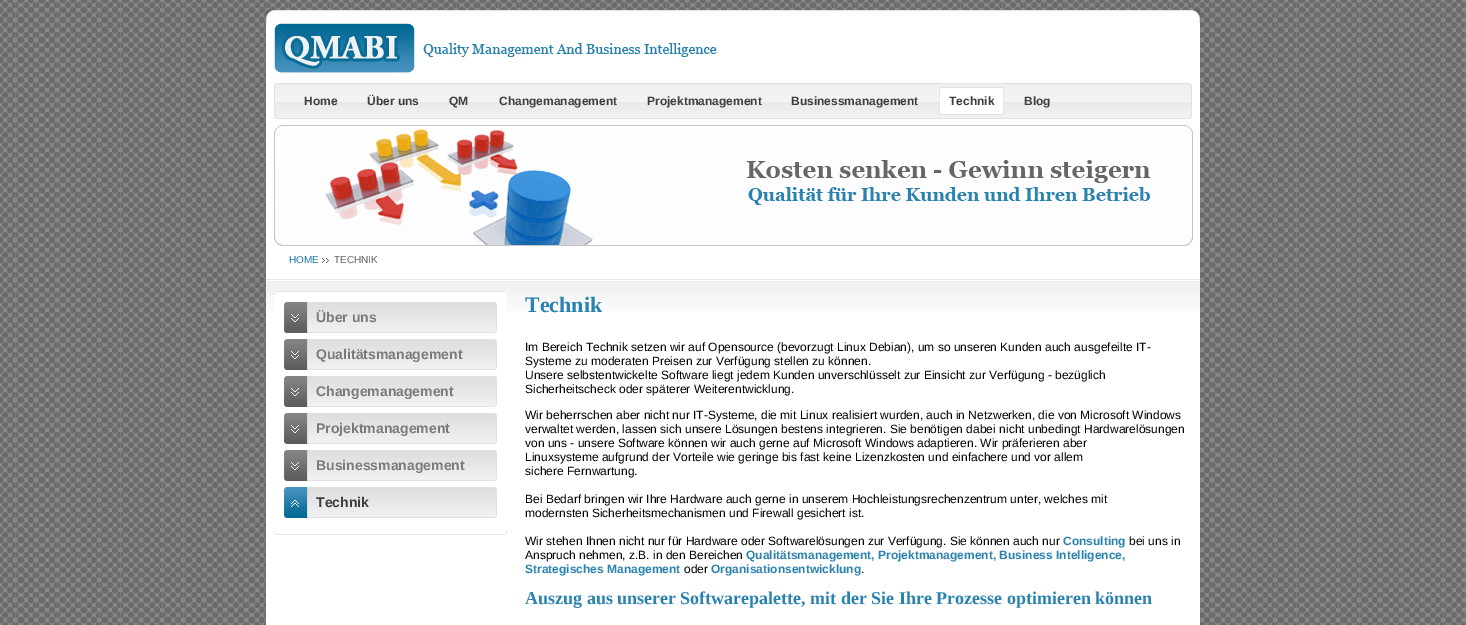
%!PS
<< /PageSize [1466 625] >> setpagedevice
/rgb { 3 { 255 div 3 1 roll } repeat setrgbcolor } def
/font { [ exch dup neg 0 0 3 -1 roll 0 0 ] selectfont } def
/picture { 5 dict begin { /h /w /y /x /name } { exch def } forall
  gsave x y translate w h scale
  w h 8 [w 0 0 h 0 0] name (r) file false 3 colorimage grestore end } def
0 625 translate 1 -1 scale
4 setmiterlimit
255 255 255 rgb
0 0 1466 625 rectfill
(img/1.rgb) 0 0 1466 625 picture
(img/2.rgb) 266 10 934 13 picture
266 23 934 602 rectfill
(img/3.rgb) 274 23 443 50 picture
(img/4.rgb) 274 83 918 36 picture
(img/5.rgb) 939 87 63 28 picture
(img/6.rgb) 1002 87 2 28 picture
(img/7.rgb) 274 125 919 121 picture
(img/8.rgb) 322 258 7 5 picture
(img/9.rgb) 266 279 934 32 picture
(img/10.rgb) 274 291 233 4 picture
274 295 233 16 rectfill
(img/11.rgb) 284 302 213 31 picture
(img/11.rgb) 284 339 213 31 picture
(img/11.rgb) 284 376 213 31 picture
(img/11.rgb) 284 413 213 31 picture
(img/11.rgb) 284 450 213 31 picture
(img/12.rgb) 284 487 213 31 picture
(img/13.rgb) 274 531 233 4 picture
/LiberationSans-Bold 12 font
62 62 62 rgb
[
  [(Home) 304 105]
  [(Über uns) 367 105]
  [(QM) 449 105]
  [(Changemanagement) 499 105]
  [(Projektmanagement) 647 105]
  [(Businessmanagement) 791 105]
  [(Technik) 949 105]
  [(Blog) 1024 105]
] { aload pop moveto show } forall
/LiberationSans-Regular 10 font
33 123 166 rgb
289 263 moveto (HOME) show
102 102 102 rgb
334 263 moveto (TECHNIK) show
/LiberationSans-Bold 14 font
122 122 122 rgb
[
  [(Über uns) 316 322]
  [(Qualitätsmanagement) 316 359]
  [(Changemanagement) 316 396]
  [(Projektmanagement) 316 433]
  [(Businessmanagement) 316 470]
] { aload pop moveto show } forall
62 62 62 rgb
316 507 moveto (Technik) show
/LiberationSerif-Bold 22 font
42 130 174 rgb
525 312 moveto (Technik) show
/LiberationSans-Regular 12 font
0 0 0 rgb
[
  [(Im Bereich Technik setzen wir auf Opensource \(bevorzugt Linux Debian\), um so unseren Kunden auch ausgefeilte IT-) 525 351]
  [(Systeme zu moderaten Preisen zur Verfügung stellen zu können.) 525 365]
  [(Unsere selbstentwickelte Software liegt jedem Kunden unverschlüsselt zur Einsicht zur Verfügung - bezüglich) 525 379]
  [(Sicherheitscheck oder späterer Weiterentwicklung.) 525 393]
  [(Wir beherrschen aber nicht nur IT-Systeme, die mit Linux realisiert wurden, auch in Netzwerken, die von Microsoft Windows) 525 419]
  [(verwaltet werden, lassen sich unsere Lösungen bestens integrieren. Sie benötigen dabei nicht unbedingt Hardwarelösungen) 525 433]
  [(von uns - unsere Software können wir auch gerne auf Microsoft Windows adaptieren. Wir präferieren aber) 525 447]
  [(Linuxsysteme aufgrund der Vorteile wie geringe bis fast keine Lizenzkosten und einfachere und vor allem) 525 461]
  [(sichere Fernwartung.) 525 475]
  [(Bei Bedarf bringen wir Ihre Hardware auch gerne in unserem Hochleistungsrechenzentrum unter, welches mit) 525 503]
  [(modernsten Sicherheitsmechanismen und Firewall gesichert ist.) 525 517]
  [(Wir stehen Ihnen nicht nur für Hardware oder Softwarelösungen zur Verfügung. Sie können auch nur) 525 545]
] { aload pop moveto show } forall
/LiberationSans-Bold 12 font
42 130 174 rgb
1063 545 moveto (Consulting) show
/LiberationSans-Regular 12 font
0 0 0 rgb
1129 545 moveto (bei uns in) show
525 559 moveto (Anspruch nehmen, z.B. in den Bereichen) show
/LiberationSans-Bold 12 font
42 130 174 rgb
746 559 moveto (Qualitätsmanagement, Projektmanagement, Business Intelligence,) show
525 573 moveto (Strategisches Management) show
/LiberationSans-Regular 12 font
0 0 0 rgb
684 573 moveto (oder) show
/LiberationSans-Bold 12 font
42 130 174 rgb
711 573 moveto (Organisationsentwicklung) show
/LiberationSans-Regular 12 font
0 0 0 rgb
861 573 moveto (.) show
/LiberationSerif-Bold 18 font
42 130 174 rgb
525 604 moveto (Auszug aus unserer Softwarepalette, mit der Sie Ihre Prozesse optimieren können) show
showpage
